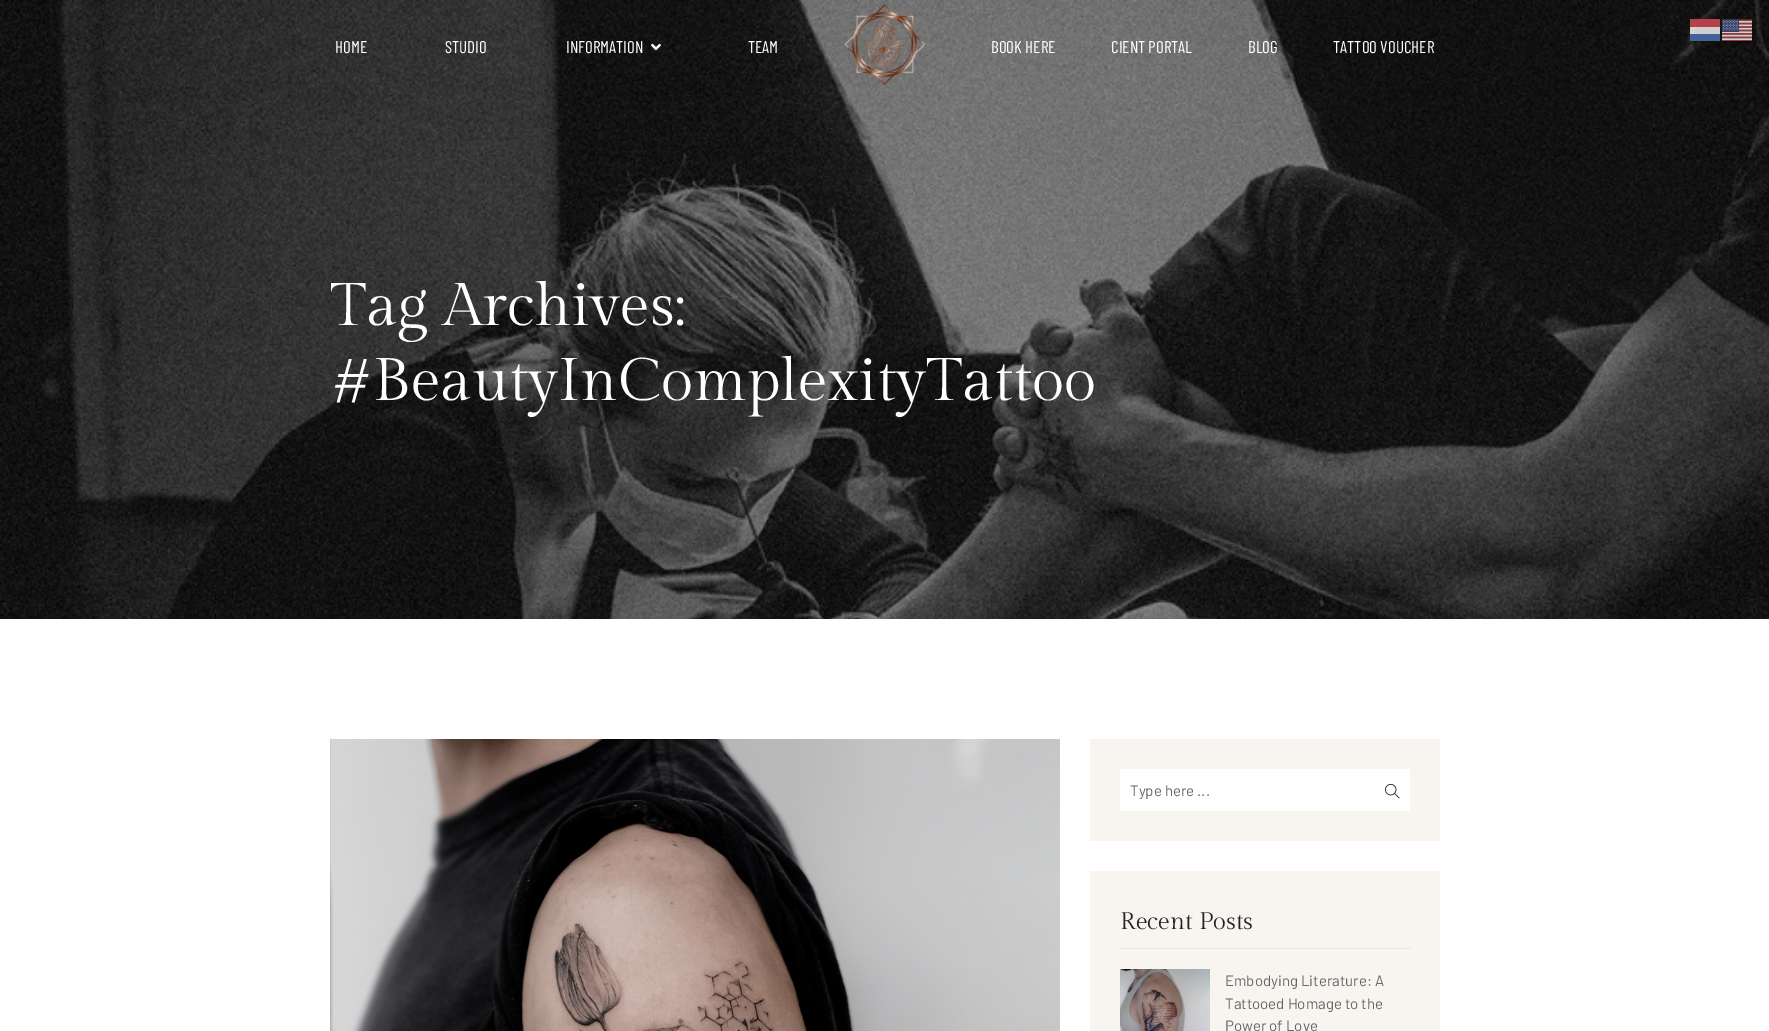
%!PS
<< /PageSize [1769 1031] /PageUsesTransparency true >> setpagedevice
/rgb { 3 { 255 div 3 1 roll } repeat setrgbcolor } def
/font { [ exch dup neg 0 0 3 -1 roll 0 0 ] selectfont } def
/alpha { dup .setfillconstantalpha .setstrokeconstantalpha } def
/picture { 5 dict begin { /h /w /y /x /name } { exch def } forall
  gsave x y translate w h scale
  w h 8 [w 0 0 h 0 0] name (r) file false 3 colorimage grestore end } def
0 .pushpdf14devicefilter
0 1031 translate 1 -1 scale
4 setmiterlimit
255 255 255 rgb
0 0 1769 1031 rectfill
(img/4.rgb) 0 0 1769 619 picture
0.8 alpha
[
  [1690 19 30 22 255 255 255]
  [1690 19 30 8 174 28 40]
  [1690 34 30 7 33 70 139]
] { aload pop rgb rectfill } forall
1 alpha
(img/1.rgb) 1722 19 30 22 picture
(img/2.rgb) 651 43 10 8 picture
(img/3.rgb) 844 5 82 80 picture
(img/5.rgb) 330 739 730 292 picture
248 245 240 rgb
1090 739 350 102 rectfill
255 255 255 rgb
1120 769 290 42 rectfill
(img/6.rgb) 1385 783 15 16 picture
248 245 240 rgb
1090 871 350 160 rectfill
238 227 208 rgb
1120 948 290 1 rectfill
(img/7.rgb) 1120 969 90 62 picture
/BarlowCondensed-Regular 17 font
255 255 255 rgb
[
  [(HOME) 335 53]
  [(STUDIO) 445 53]
  [(INFORMATION) 566 53]
  [(TEAM) 748 53]
  [(BOOK HERE) 991 53]
  [(CIENT PORTAL) 1111 53]
  [(BLOG) 1248 53]
  [(TATTOO VOUCHER) 1333 53]
] { aload pop moveto show } forall
/GildaDisplay-Regular 60 font
330 325 moveto (Tag Archives:) show
330 400 moveto (#BeautyInComplexityTattoo) show
/Barlow-Regular 15 font
102 102 102 rgb
1130 796 moveto (Type here ...) show
/GildaDisplay-Regular 24 font
34 34 34 rgb
1120 929 moveto (Recent Posts) show
/Barlow-Regular 15 font
102 102 102 rgb
[
  [(Embodying Literature: A) 1225 986]
  [(Tattooed Homage to the) 1225 1009]
  [(Power of Love) 1225 1031]
] { aload pop moveto show } forall
.poppdf14devicefilter showpage
